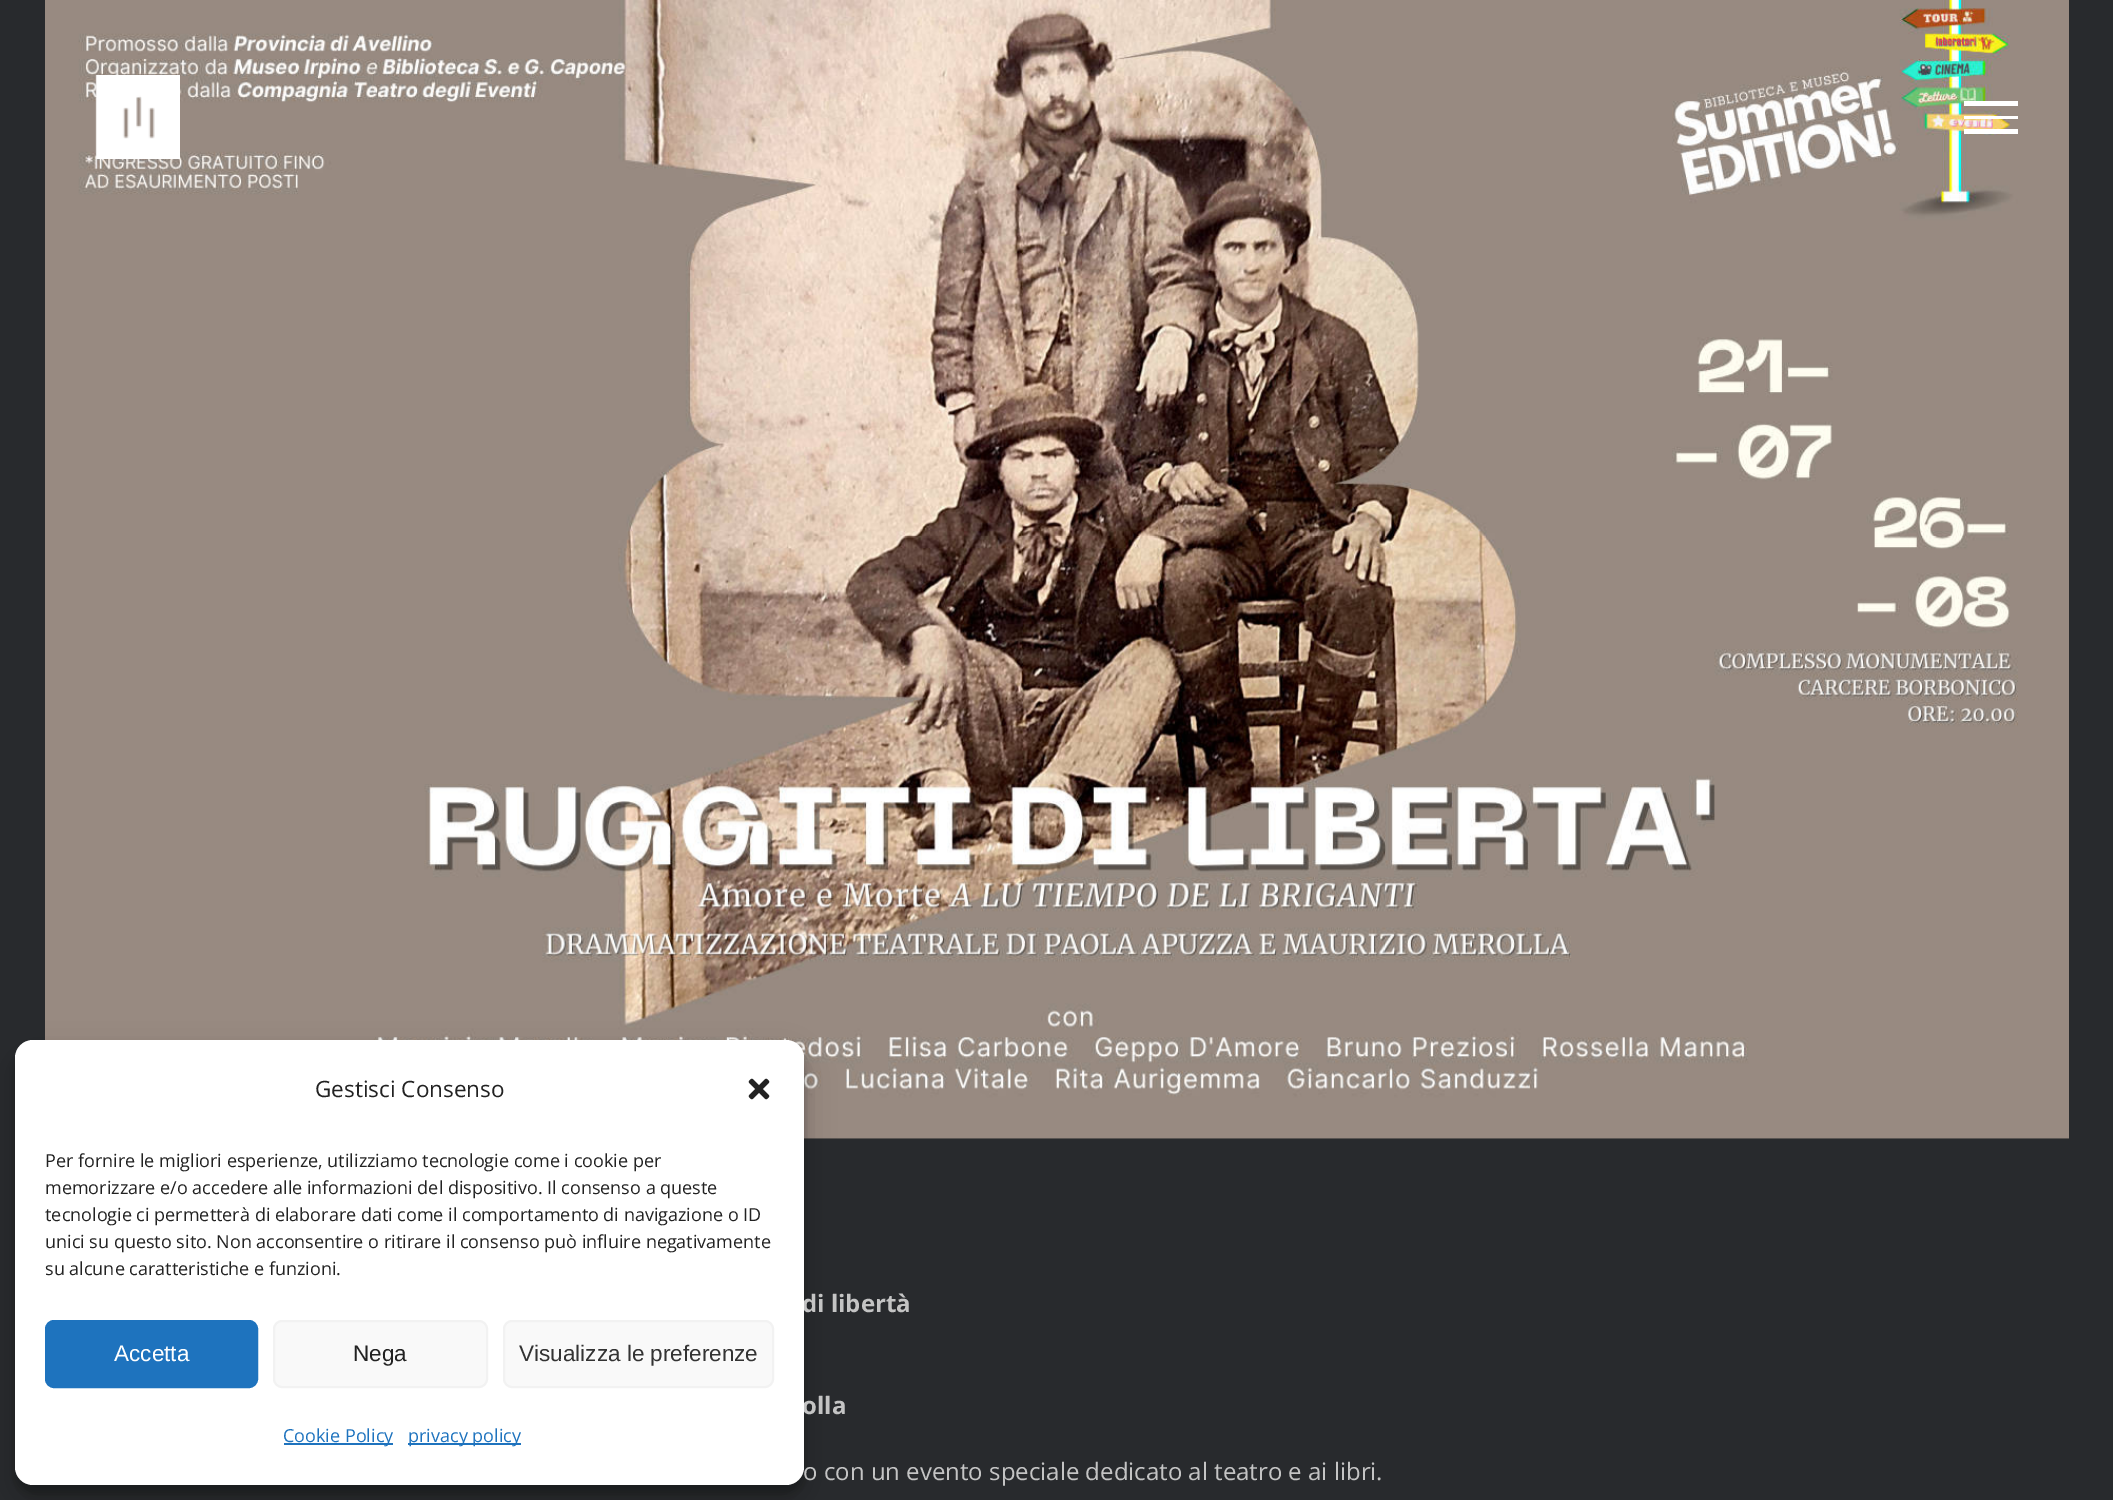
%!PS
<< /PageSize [2113 1500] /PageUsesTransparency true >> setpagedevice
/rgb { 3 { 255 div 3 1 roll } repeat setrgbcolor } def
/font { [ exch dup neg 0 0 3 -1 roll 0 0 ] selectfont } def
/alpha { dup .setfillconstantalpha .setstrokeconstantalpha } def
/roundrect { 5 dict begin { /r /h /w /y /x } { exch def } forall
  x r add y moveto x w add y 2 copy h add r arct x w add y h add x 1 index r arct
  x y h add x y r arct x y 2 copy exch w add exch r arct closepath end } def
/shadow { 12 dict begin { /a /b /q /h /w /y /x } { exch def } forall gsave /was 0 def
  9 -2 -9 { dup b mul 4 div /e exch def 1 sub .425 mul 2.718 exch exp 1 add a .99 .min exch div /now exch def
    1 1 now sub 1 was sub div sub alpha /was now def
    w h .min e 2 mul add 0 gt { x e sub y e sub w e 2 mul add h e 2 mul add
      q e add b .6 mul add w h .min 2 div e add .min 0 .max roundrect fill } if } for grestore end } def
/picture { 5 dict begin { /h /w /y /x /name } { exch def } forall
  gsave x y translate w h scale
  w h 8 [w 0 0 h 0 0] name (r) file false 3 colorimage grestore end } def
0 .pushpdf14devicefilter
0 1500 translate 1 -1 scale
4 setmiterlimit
40 42 45 rgb
0 0 2113 1500 rectfill
(img/3.rgb) 45 0 2024 1139 picture
0 0 0 rgb
15 1049 789 445 18 4.5 0.23 shadow
15 1055 789 445 18 15 0.19 shadow
(img/2.rgb) 95 75 85 84 picture
[
  [1964 101 54 5 255 255 255]
  [1964 116 54 3 255 255 255]
  [1964 129 54 5 255 255 255]
] { aload pop rgb rectfill } forall
/OpenSans-Bold 24 font
196 196 196 rgb
802 1312 moveto (di libertà) show
802 1414 moveto (olla) show
255 255 255 rgb
15 1040 789 445 18 roundrect fill
/OpenSans-Regular 18 font
34 34 34 rgb
[
  [(su alcune caratteristiche e funzioni.) 45 1275]
  [(unici su questo sito. Non acconsentire o ritirare il consenso può influire negativamente) 45 1248]
  [(tecnologie ci permetterà di elaborare dati come il comportamento di navigazione o ID) 45 1221]
  [(memorizzare e/o accedere alle informazioni del dispositivo. Il consenso a queste) 45 1194]
  [(Per fornire le migliori esperienze, utilizziamo tecnologie come i cookie per) 45 1167]
] { aload pop moveto show } forall
(img/1.rgb) 748 1078 22 22 picture
30 115 190 rgb
408 1443 113 2 rectfill
408 1442 moveto (privacy policy) show
284 1443 109 2 rectfill
283 1442 moveto (Cookie Policy) show
249 249 249 rgb
504 1321 269 66 8 roundrect gsave fill grestore
242 242 242 rgb
2 setlinewidth
stroke
/LiberationSans-Regular 22.5 font
51 51 51 rgb
519 1361 moveto (Visualizza le preferenze) show
249 249 249 rgb
274 1321 213 66 8 roundrect gsave fill grestore
242 242 242 rgb
stroke
34 34 34 rgb
353 1361 moveto (Nega) show
30 115 190 rgb
46 1321 211 66 8 roundrect gsave fill grestore
stroke
255 255 255 rgb
114 1361 moveto (Accetta) show
/OpenSans-Regular 22.5 font
34 34 34 rgb
315 1097 moveto (Gestisci Consenso) show
/OpenSans-Regular 24 font
196 196 196 rgb
803 1480 moveto (o con un evento speciale dedicato al teatro e ai libri.) show
.poppdf14devicefilter showpage
